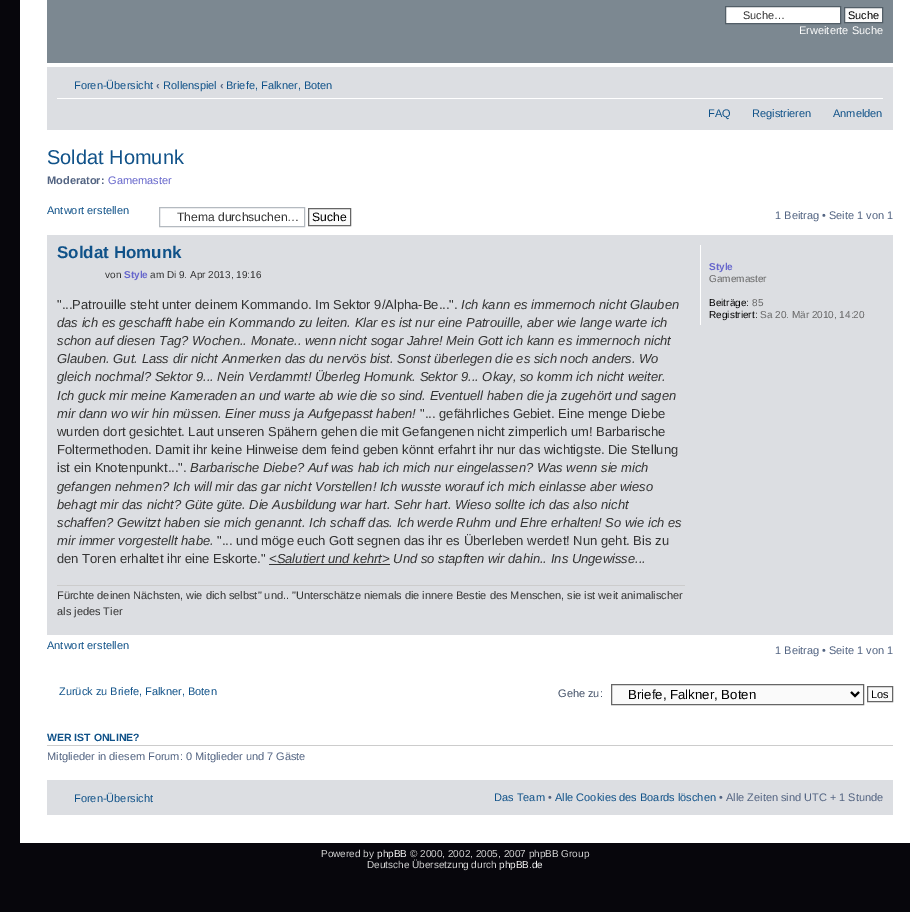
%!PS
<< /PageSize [910 912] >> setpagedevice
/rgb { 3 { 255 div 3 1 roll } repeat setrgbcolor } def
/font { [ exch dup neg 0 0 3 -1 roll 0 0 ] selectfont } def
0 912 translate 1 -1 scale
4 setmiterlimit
7 6 12 rgb
0 0 910 912 rectfill
255 255 255 rgb
20 0 890 843 rectfill
124 136 145 rgb
47 0 846 63 rectfill
255 255 255 rgb
725.5 6.5 moveto 840.5 6.5 lineto 840.5 23.5 lineto 725.5 23.5 lineto closepath gsave fill grestore
82 94 103 rgb
stroke
250 250 250 rgb
844.5 7.5 moveto 882.5 7.5 lineto 882.5 22.5 lineto 844.5 22.5 lineto closepath gsave fill grestore
82 94 103 rgb
stroke
220 222 226 rgb
47 67 846 63 rectfill
255 255 255 rgb
57 98 826 1 rectfill
180 186 192 rgb
159.5 207.5 145 19 rectstroke
250 250 250 rgb
308.5 208.5 moveto 350.5 208.5 lineto 350.5 225.5 lineto 308.5 225.5 lineto closepath gsave fill grestore
102 102 102 rgb
stroke
[
  [47 235 846 400 220 222 226]
  [269 564 121 1 51 51 51]
  [57 585 628 1 204 204 204]
  [700 245 1 80 255 255 255]
] { aload pop rgb rectfill } forall
250 250 250 rgb
611.5 684.5 moveto 863.5 684.5 lineto 863.5 704.5 lineto 611.5 704.5 lineto closepath gsave fill grestore
102 102 102 rgb
stroke
0 0 0 rgb
2 setlinewidth
851 692 moveto 855 696 lineto 859 692 lineto stroke
250 250 250 rgb
867.5 686.5 moveto 892.5 686.5 lineto 892.5 701.5 lineto 867.5 701.5 lineto closepath gsave fill grestore
102 102 102 rgb
1 setlinewidth
stroke
204 204 204 rgb
47 745 846 1 rectfill
220 222 226 rgb
47 780 846 35 rectfill
/LiberationSans-Regular 11 font
51 51 51 rgb
743 19 moveto (Suche…) show
0 0 0 rgb
848 19 moveto (Suche) show
255 255 255 rgb
799 34 moveto (Erweiterte Suche) show
16 82 137 rgb
74 89 moveto (Foren-Übersicht) show
/LiberationSans-Bold 11 font
83 100 130 rgb
156 89 moveto (‹) show
/LiberationSans-Regular 11 font
16 82 137 rgb
163 89 moveto (Rollenspiel) show
/LiberationSans-Bold 11 font
83 100 130 rgb
220 89 moveto (‹) show
/LiberationSans-Regular 11 font
16 82 137 rgb
[
  [(Briefe, Falkner, Boten) 226 89]
  [(FAQ) 708 117]
  [(Registrieren) 752 117]
  [(Anmelden) 833 117]
] { aload pop moveto show } forall
/LiberationSans-Regular 20 font
47 164 moveto (Soldat Homunk) show
/LiberationSans-Bold 11 font
83 100 130 rgb
47 184 moveto (Moderator:) show
/LiberationSans-Regular 11 font
102 102 204 rgb
108 184 moveto (Gamemaster) show
16 82 137 rgb
47 214 moveto (Antwort erstellen) show
/LiberationSans-Regular 12.1 font
51 51 51 rgb
177 221 moveto (Thema durchsuchen…) show
0 0 0 rgb
312 221 moveto (Suche) show
/LiberationSans-Regular 11 font
83 100 130 rgb
775 219 moveto (1 Beitrag • Seite 1 von 1) show
/LiberationSans-Bold 17 font
16 82 137 rgb
57 258 moveto (Soldat Homunk) show
/LiberationSans-Regular 10 font
51 51 51 rgb
105 278 moveto (von) show
/LiberationSans-Bold 10 font
102 102 204 rgb
124 278 moveto (Style) show
/LiberationSans-Regular 10 font
51 51 51 rgb
150 278 moveto (am Di 9. Apr 2013, 19:16) show
/LiberationSans-Regular 13 font
57 309 moveto ("...Patrouille steht unter deinem Kommando. Im Sektor 9/Alpha-Be...".) show
/LiberationSans-Italic 13 font
[
  [(Ich kann es immernoch nicht Glauben) 461 309]
  [(das ich es geschafft habe ein Kommando zu leiten. Klar es ist nur eine Patrouille, aber wie lange warte ich) 57 327]
  [(schon auf diesen Tag? Wochen.. Monate.. wenn nicht sogar Jahre! Mein Gott ich kann es immernoch nicht) 57 345]
  [(Glauben. Gut. Lass dir nicht Anmerken das du nervös bist. Sonst überlegen die es sich noch anders. Wo) 57 363]
  [(gleich nochmal? Sektor 9... Nein Verdammt! Überleg Homunk. Sektor 9... Okay, so komm ich nicht weiter.) 57 381]
  [(Ich guck mir meine Kameraden an und warte ab wie die so sind. Eventuell haben die ja zugehört und sagen) 57 400]
  [(mir dann wo wir hin müssen. Einer muss ja Aufgepasst haben!) 57 418]
] { aload pop moveto show } forall
/LiberationSans-Regular 13 font
[
  [("... gefährliches Gebiet. Eine menge Diebe) 420 418]
  [(wurden dort gesichtet. Laut unseren Spähern gehen die mit Gefangenen nicht zimperlich um! Barbarische) 57 436]
  [(Foltermethoden. Damit ihr keine Hinweise dem feind geben könnt erfahrt ihr nur das wichtigste. Die Stellung) 57 454]
  [(ist ein Knotenpunkt...".) 57 472]
] { aload pop moveto show } forall
/LiberationSans-Italic 13 font
[
  [(Barbarische Diebe? Auf was hab ich mich nur eingelassen? Was wenn sie mich) 190 472]
  [(gefangen nehmen? Ich will mir das gar nicht Vorstellen! Ich wusste worauf ich mich einlasse aber wieso) 57 491]
  [(behagt mir das nicht? Güte güte. Die Ausbildung war hart. Sehr hart. Wieso sollte ich das also nicht) 57 509]
  [(schaffen? Gewitzt haben sie mich genannt. Ich schaff das. Ich werde Ruhm und Ehre erhalten! So wie ich es) 57 527]
  [(mir immer vorgestellt habe.) 57 545]
] { aload pop moveto show } forall
/LiberationSans-Regular 13 font
217 545 moveto ("... und möge euch Gott segnen das ihr es Überleben werdet! Nun geht. Bis zu) show
57 563 moveto (den Toren erhaltet ihr eine Eskorte.") show
/LiberationSans-Italic 13 font
269 563 moveto (<Salutiert und kehrt> Und so stapften wir dahin.. Ins Ungewisse...) show
/LiberationSans-Regular 11 font
57 599 moveto (Fürchte deinen Nächsten, wie dich selbst" und.. "Unterschätze niemals die innere Bestie des Menschen, sie ist weit animalischer) show
57 615 moveto (als jedes Tier) show
/LiberationSans-Bold 10 font
102 102 204 rgb
709 270 moveto (Style) show
/LiberationSans-Regular 10 font
102 102 102 rgb
709 282 moveto (Gamemaster) show
0 0 0 rgb
709 306 moveto (Beiträge:) show
102 102 102 rgb
752 306 moveto (85) show
0 0 0 rgb
709 318 moveto (Registriert:) show
102 102 102 rgb
760 318 moveto (Sa 20. Mär 2010, 14:20) show
/LiberationSans-Regular 11 font
16 82 137 rgb
47 649 moveto (Antwort erstellen) show
83 100 130 rgb
775 654 moveto (1 Beitrag • Seite 1 von 1) show
16 82 137 rgb
59 695 moveto (Zurück zu Briefe, Falkner, Boten) show
66 80 103 rgb
558 697 moveto (Gehe zu:) show
/LiberationSans-Regular 13.25 font
0 0 0 rgb
628 699 moveto (Briefe, Falkner, Boten) show
/LiberationSans-Regular 11 font
871 698 moveto (Los) show
/LiberationSans-Bold 10.5 font
16 82 137 rgb
47 741 moveto (WER IST ONLINE?) show
/LiberationSans-Regular 11 font
83 100 130 rgb
47 760 moveto (Mitglieder in diesem Forum: 0 Mitglieder und 7 Gäste) show
16 82 137 rgb
74 802 moveto (Foren-Übersicht) show
494 801 moveto (Das Team) show
83 100 130 rgb
548 801 moveto (•) show
16 82 137 rgb
555 801 moveto (Alle Cookies des Boards löschen) show
83 100 130 rgb
719 801 moveto (• Alle Zeiten sind UTC + 1 Stunde) show
/LiberationSans-Regular 10 font
212 212 212 rgb
321 857 moveto (Powered by) show
244 244 244 rgb
377 857 moveto (phpBB) show
212 212 212 rgb
410 857 moveto (© 2000, 2002, 2005, 2007 phpBB Group) show
367 868 moveto (Deutsche Übersetzung durch) show
244 244 244 rgb
499 868 moveto (phpBB.de) show
showpage
